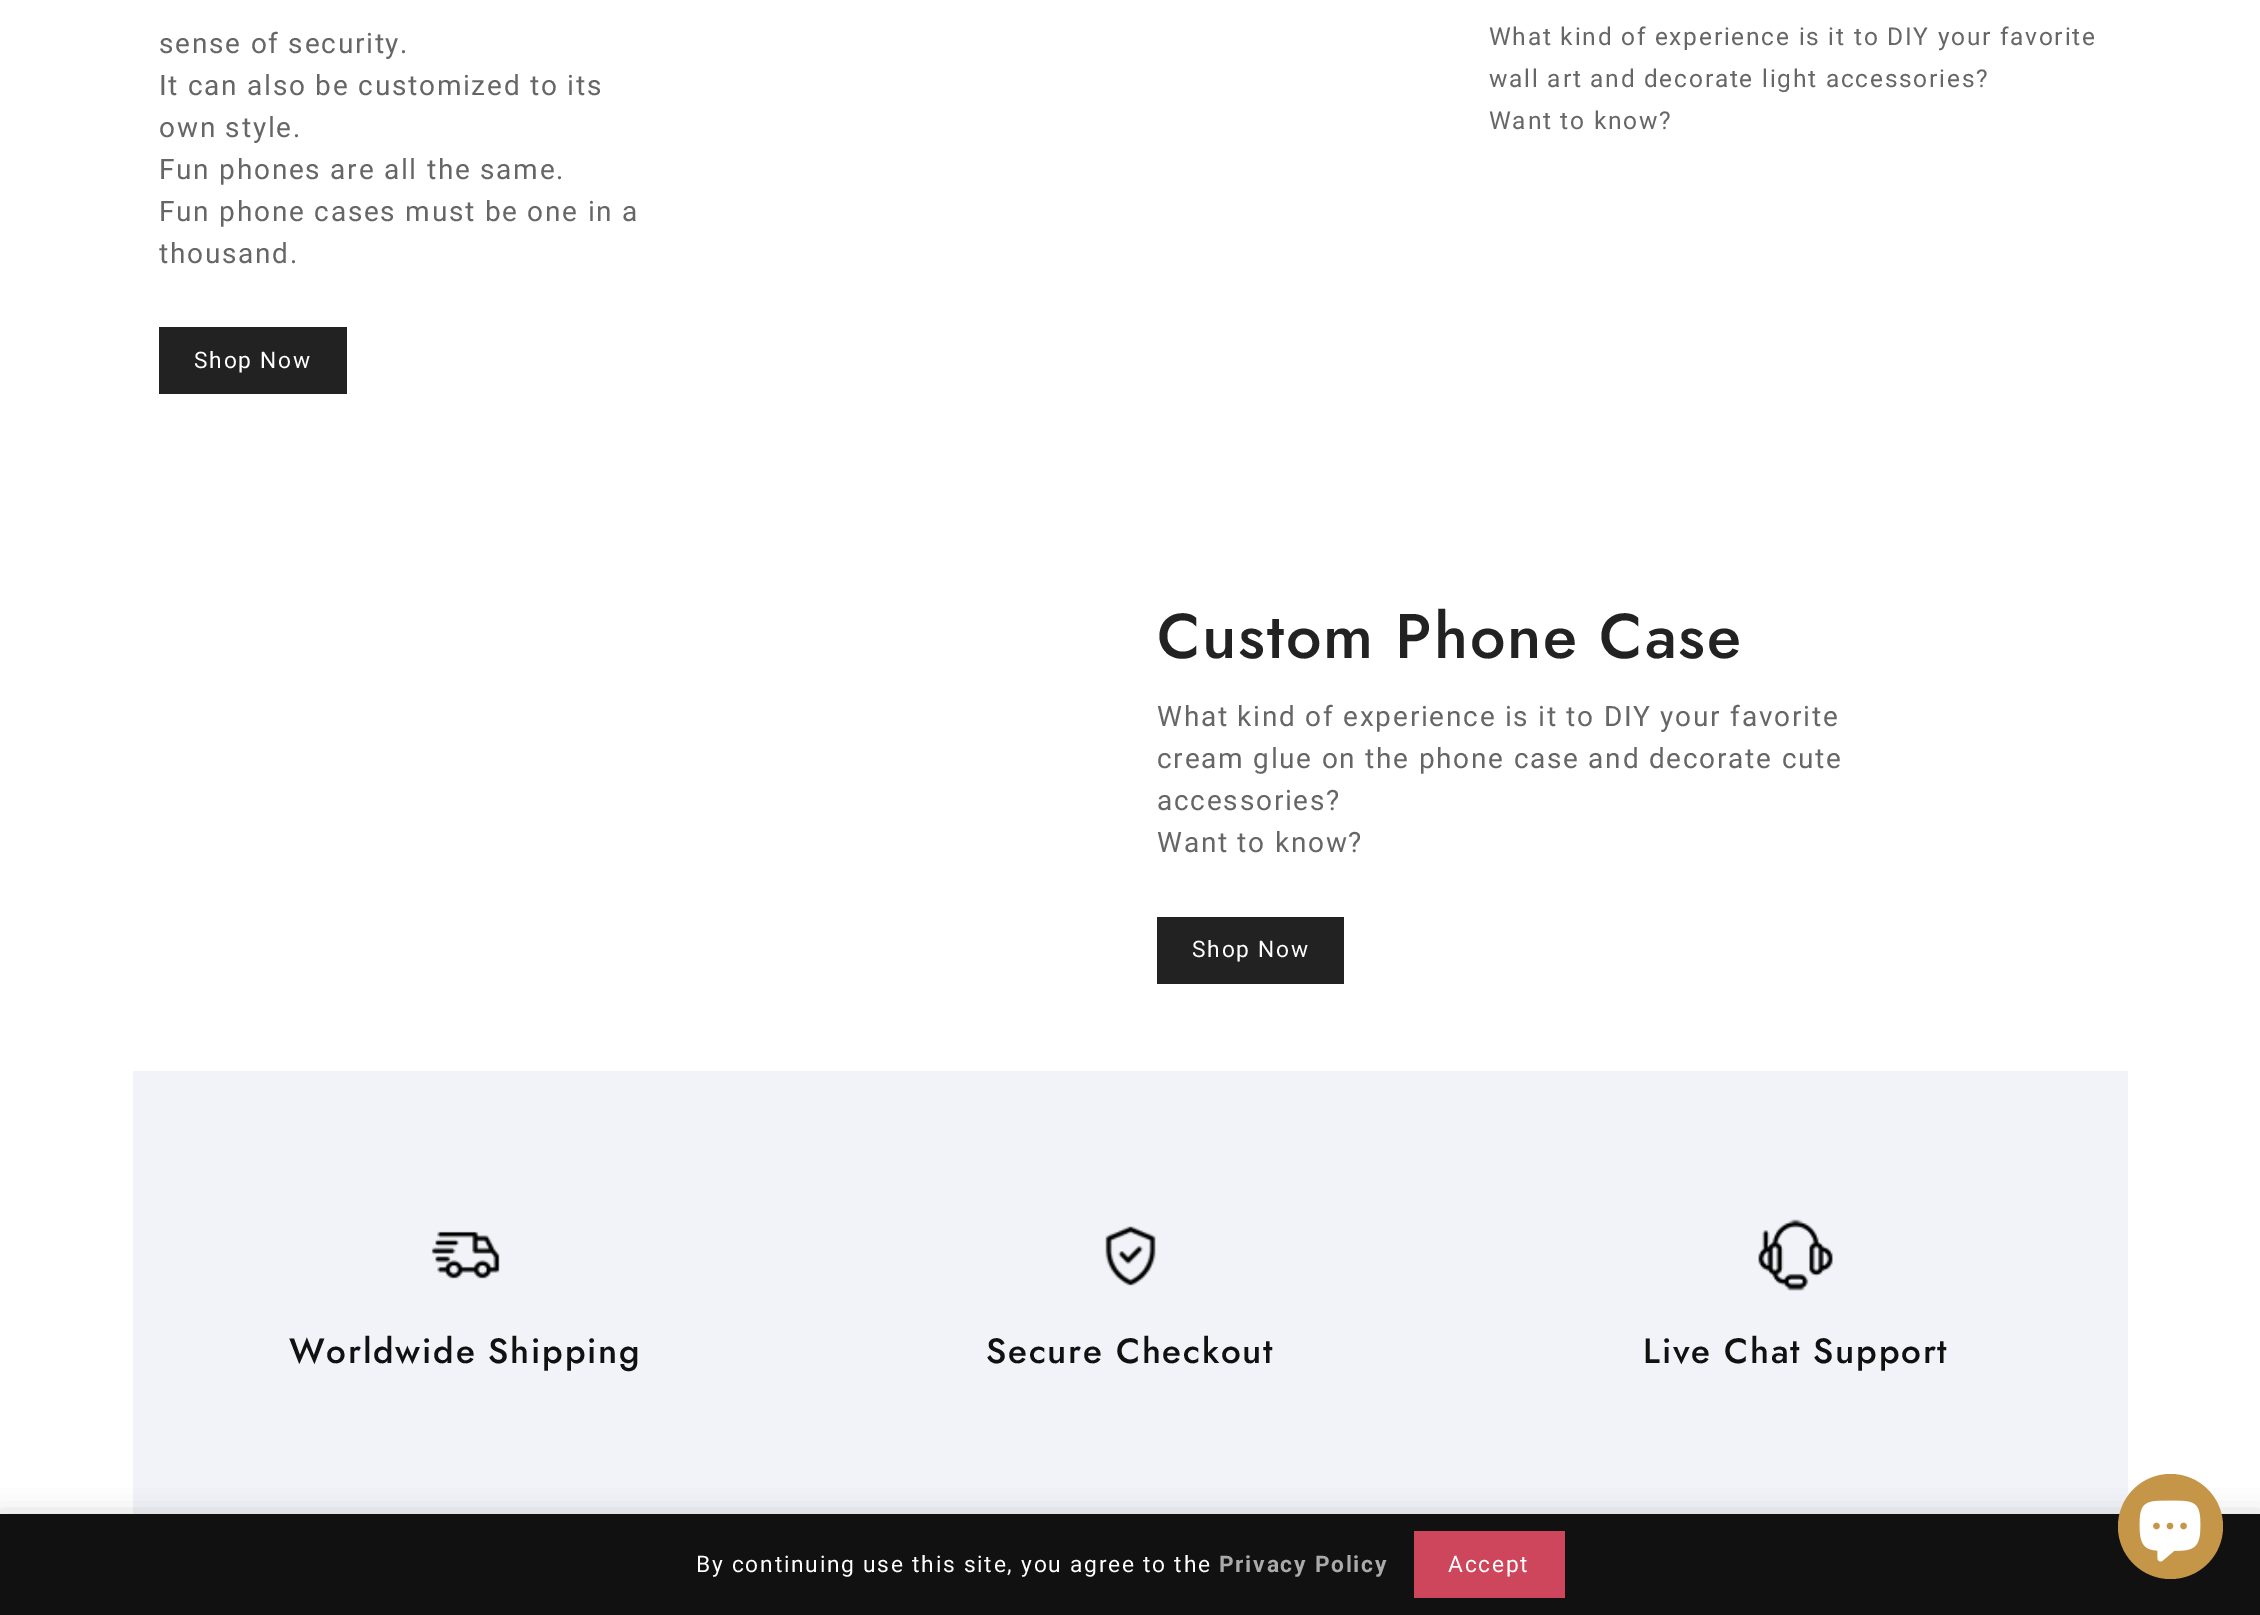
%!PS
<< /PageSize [2260 1615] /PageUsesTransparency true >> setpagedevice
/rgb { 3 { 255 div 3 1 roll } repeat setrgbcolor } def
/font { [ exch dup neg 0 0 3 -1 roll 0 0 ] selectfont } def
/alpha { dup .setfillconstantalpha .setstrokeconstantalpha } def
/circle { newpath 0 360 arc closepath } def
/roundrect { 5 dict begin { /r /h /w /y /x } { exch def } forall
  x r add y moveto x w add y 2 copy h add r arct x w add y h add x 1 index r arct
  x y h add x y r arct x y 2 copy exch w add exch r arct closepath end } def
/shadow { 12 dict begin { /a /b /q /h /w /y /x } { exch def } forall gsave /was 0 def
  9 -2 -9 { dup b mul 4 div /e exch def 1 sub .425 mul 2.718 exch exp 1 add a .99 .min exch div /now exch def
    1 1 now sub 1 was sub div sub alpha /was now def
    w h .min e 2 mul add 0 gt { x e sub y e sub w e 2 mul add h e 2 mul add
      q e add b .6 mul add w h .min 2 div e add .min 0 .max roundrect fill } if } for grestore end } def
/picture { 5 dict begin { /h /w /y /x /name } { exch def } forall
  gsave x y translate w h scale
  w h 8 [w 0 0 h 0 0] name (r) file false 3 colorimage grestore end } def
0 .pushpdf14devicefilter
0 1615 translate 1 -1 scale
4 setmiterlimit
255 255 255 rgb
0 0 2260 1615 rectfill
[
  [159 327 188 67 34 34 34]
  [1157 917 187 67 34 34 34]
  [133 1071 1995 443 241 243 248]
] { aload pop rgb rectfill } forall
(img/1.rgb) 431 1231 69 48 picture
(img/2.rgb) 1105 1226 51 60 picture
(img/3.rgb) 1758 1219 75 72 picture
0 0 0 rgb
0 1517 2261 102 0 13 0.2 shadow
17 17 17 rgb
0 1514 2260 101 rectfill
206 70 91 rgb
1414 1531 151 67 rectfill
197 149 72 rgb
2170.5 1526.5 52.5 circle fill
(img/4.rgb) 2139 1500 62 62 picture
/Roboto-Regular 28 font
102 102 102 rgb
159 53 moveto 1.75 0 (sense of security.) ashow
159 95 moveto 1.75 0 (It can also be customized to its) ashow
159 137 moveto 1.75 0 (own style.) ashow
159 179 moveto 1.75 0 (Fun phones are all the same.) ashow
159 221 moveto 1.75 0 (Fun phone cases must be one in a) ashow
159 263 moveto 1.75 0 (thousand.) ashow
/Roboto-Regular 22.75 font
255 255 255 rgb
194 368 moveto 1.75 0 (Shop Now) ashow
/Roboto-Regular 24.5 font
102 102 102 rgb
1489 45 moveto 1.75 0 (What kind of experience is it to DIY your favorite) ashow
1489 87 moveto 1.75 0 (wall art and decorate light accessories?) ashow
1489 129 moveto 1.75 0 (Want to know?) ashow
/Jost-Medium 63 font
34 34 34 rgb
1157 658 moveto 1.75 0 (Custom Phone Case) ashow
/Roboto-Regular 28 font
102 102 102 rgb
1157 726 moveto 1.75 0 (What kind of experience is it to DIY your favorite) ashow
1157 768 moveto 1.75 0 (cream glue on the phone case and decorate cute) ashow
1157 810 moveto 1.75 0 (accessories?) ashow
1157 852 moveto 1.75 0 (Want to know?) ashow
/Roboto-Regular 22.75 font
255 255 255 rgb
1192 957 moveto 1.75 0 (Shop Now) ashow
/Jost-Medium 35 font
17 17 17 rgb
289 1363 moveto 1.75 0 (Worldwide Shipping) ashow
986 1363 moveto 1.75 0 (Secure Checkout) ashow
1643 1363 moveto 1.75 0 (Live Chat Support) ashow
/Roboto-Regular 22.75 font
255 255 255 rgb
696 1572 moveto 1.75 0 (By continuing use this site, you agree to the) ashow
/Roboto-Bold 22.75 font
170 170 170 rgb
1219 1572 moveto 1.75 0 (Privacy Policy) ashow
/Roboto-Regular 22.75 font
255 255 255 rgb
1448 1572 moveto 1.75 0 (Accept) ashow
.poppdf14devicefilter showpage
